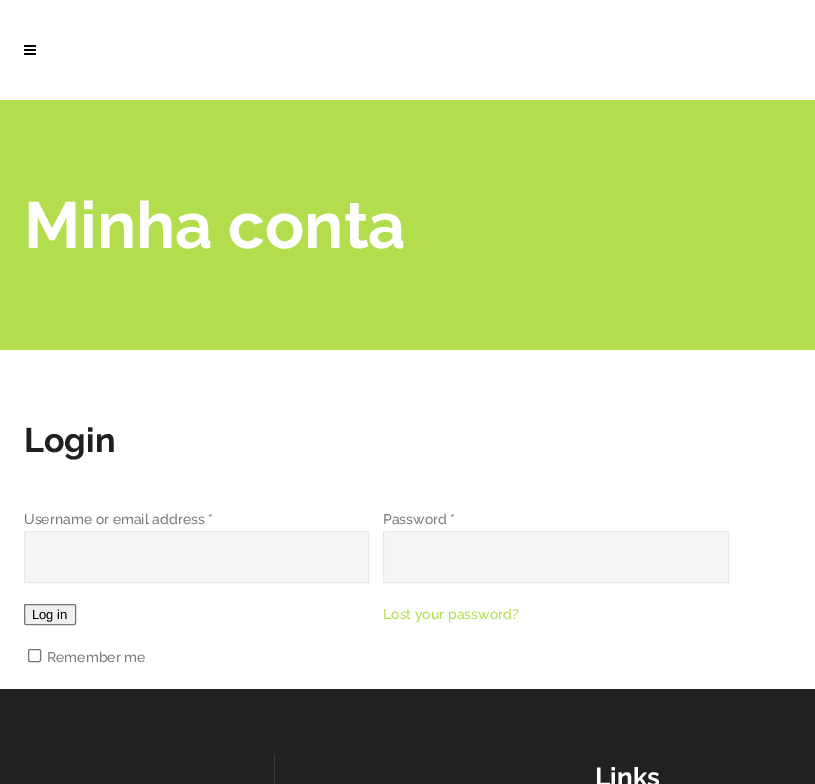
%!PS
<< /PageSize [815 784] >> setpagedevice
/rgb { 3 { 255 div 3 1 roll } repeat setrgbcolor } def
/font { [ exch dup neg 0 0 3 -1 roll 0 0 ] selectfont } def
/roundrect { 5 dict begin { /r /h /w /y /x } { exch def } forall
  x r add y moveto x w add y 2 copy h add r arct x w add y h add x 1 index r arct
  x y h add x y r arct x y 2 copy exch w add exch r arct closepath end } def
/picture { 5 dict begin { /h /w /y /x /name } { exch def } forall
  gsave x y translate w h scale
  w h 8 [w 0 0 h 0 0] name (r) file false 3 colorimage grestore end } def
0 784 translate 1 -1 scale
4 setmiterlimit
255 255 255 rgb
0 0 815 784 rectfill
(img/1.rgb) 24 45 12 10 picture
178 221 76 rgb
0 100 815 250 rectfill
246 246 245 rgb
24.5 531.5 moveto 368.5 531.5 lineto 368.5 582.5 lineto 24.5 582.5 lineto closepath gsave fill grestore
233 233 233 rgb
stroke
246 246 245 rgb
383.5 531.5 moveto 728.5 531.5 lineto 728.5 582.5 lineto 383.5 582.5 lineto closepath gsave fill grestore
233 233 233 rgb
stroke
239 239 239 rgb
24.5 604.5 51 20 1.5 roundrect gsave fill grestore
118 118 118 rgb
stroke
28.5 649.5 12 12 1.5 roundrect stroke
33 33 33 rgb
0 689 815 95 rectfill
59 59 59 rgb
274 754 1 30 rectfill
/Raleway-Bold 65 font
255 255 255 rgb
24 248 moveto (Minha conta) show
/Raleway-Bold 34 font
32 32 32 rgb
24 452 moveto (Login) show
/Raleway-Medium 14 font
121 121 121 rgb
24 524 moveto (Username or email address *) show
383 524 moveto (Password *) show
/LiberationSans-Regular 13 font
0 0 0 rgb
32 619 moveto (Log in) show
/Raleway-Medium 14 font
121 121 121 rgb
47 662 moveto (Remember me) show
178 221 76 rgb
383 619 moveto (Lost your password?) show
/Raleway-Bold 26 font
255 255 255 rgb
595 786 moveto (Links) show
showpage
